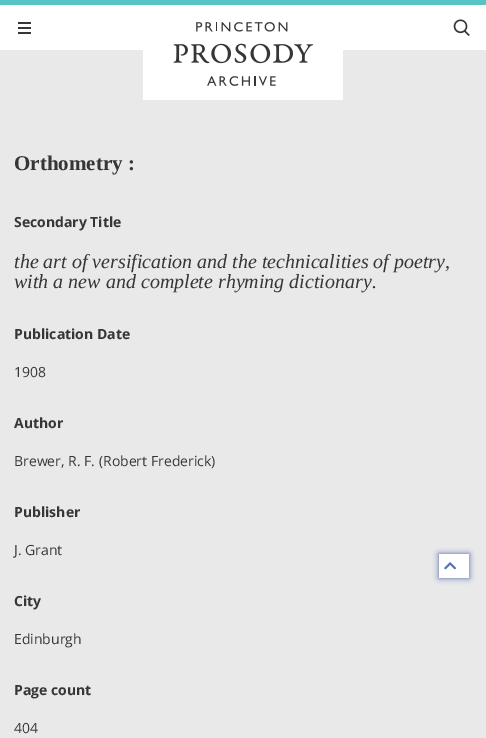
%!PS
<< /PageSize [486 738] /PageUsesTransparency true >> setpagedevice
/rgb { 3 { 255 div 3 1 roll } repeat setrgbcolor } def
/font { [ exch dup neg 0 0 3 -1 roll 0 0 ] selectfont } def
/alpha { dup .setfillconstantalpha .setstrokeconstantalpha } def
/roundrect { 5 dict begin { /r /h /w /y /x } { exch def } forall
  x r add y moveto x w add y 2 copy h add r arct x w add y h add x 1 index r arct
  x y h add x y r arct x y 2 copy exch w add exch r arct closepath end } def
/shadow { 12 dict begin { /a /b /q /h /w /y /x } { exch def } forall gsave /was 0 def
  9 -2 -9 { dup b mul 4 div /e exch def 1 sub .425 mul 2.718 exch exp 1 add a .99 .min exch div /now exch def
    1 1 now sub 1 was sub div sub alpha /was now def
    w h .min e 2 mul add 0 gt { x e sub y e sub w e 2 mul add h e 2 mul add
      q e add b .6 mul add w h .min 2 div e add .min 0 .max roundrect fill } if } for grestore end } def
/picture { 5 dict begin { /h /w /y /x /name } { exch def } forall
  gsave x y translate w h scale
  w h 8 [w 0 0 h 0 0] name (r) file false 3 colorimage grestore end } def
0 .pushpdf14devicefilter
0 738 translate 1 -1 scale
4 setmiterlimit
233 233 233 rgb
0 0 486 738 rectfill
[
  [0 5 486 45 255 255 255]
  [0 0 486 5 87 196 196]
  [18 22 13 2 54 54 54]
  [18 27 13 2 54 54 54]
  [18 32 13 2 54 54 54]
  [143 50 200 50 255 255 255]
] { aload pop rgb rectfill } forall
(img/1.rgb) 173 22 141 64 picture
(img/2.rgb) 453 19 17 17 picture
70 97 172 rgb
439 554 30 24 0 3 1 shadow
255 255 255 rgb
439 554 30 24 rectfill
(img/3.rgb) 444 562 12 8 picture
/LiberationSerif-Bold 21 font
54 54 54 rgb
14 170 moveto (Orthometry :) show
/OpenSans-Bold 14 font
14 227 moveto (Secondary Title) show
/LiberationSerif-Italic 20 font
14 268 moveto (the art of versification and the technicalities of poetry,) show
14 288 moveto (with a new and complete rhyming dictionary.) show
/OpenSans-Bold 14 font
14 339 moveto (Publication Date) show
/OpenSans-Regular 14 font
14 377 moveto (1908) show
/OpenSans-Bold 14 font
14 428 moveto (Author) show
/OpenSans-Regular 14 font
14 466 moveto (Brewer, R. F. \(Robert Frederick\)) show
/OpenSans-Bold 14 font
14 517 moveto (Publisher) show
/OpenSans-Regular 14 font
14 555 moveto (J. Grant) show
/OpenSans-Bold 14 font
14 606 moveto (City) show
/OpenSans-Regular 14 font
14 644 moveto (Edinburgh) show
/OpenSans-Bold 14 font
14 695 moveto (Page count) show
/OpenSans-Regular 14 font
14 733 moveto (404) show
.poppdf14devicefilter showpage
